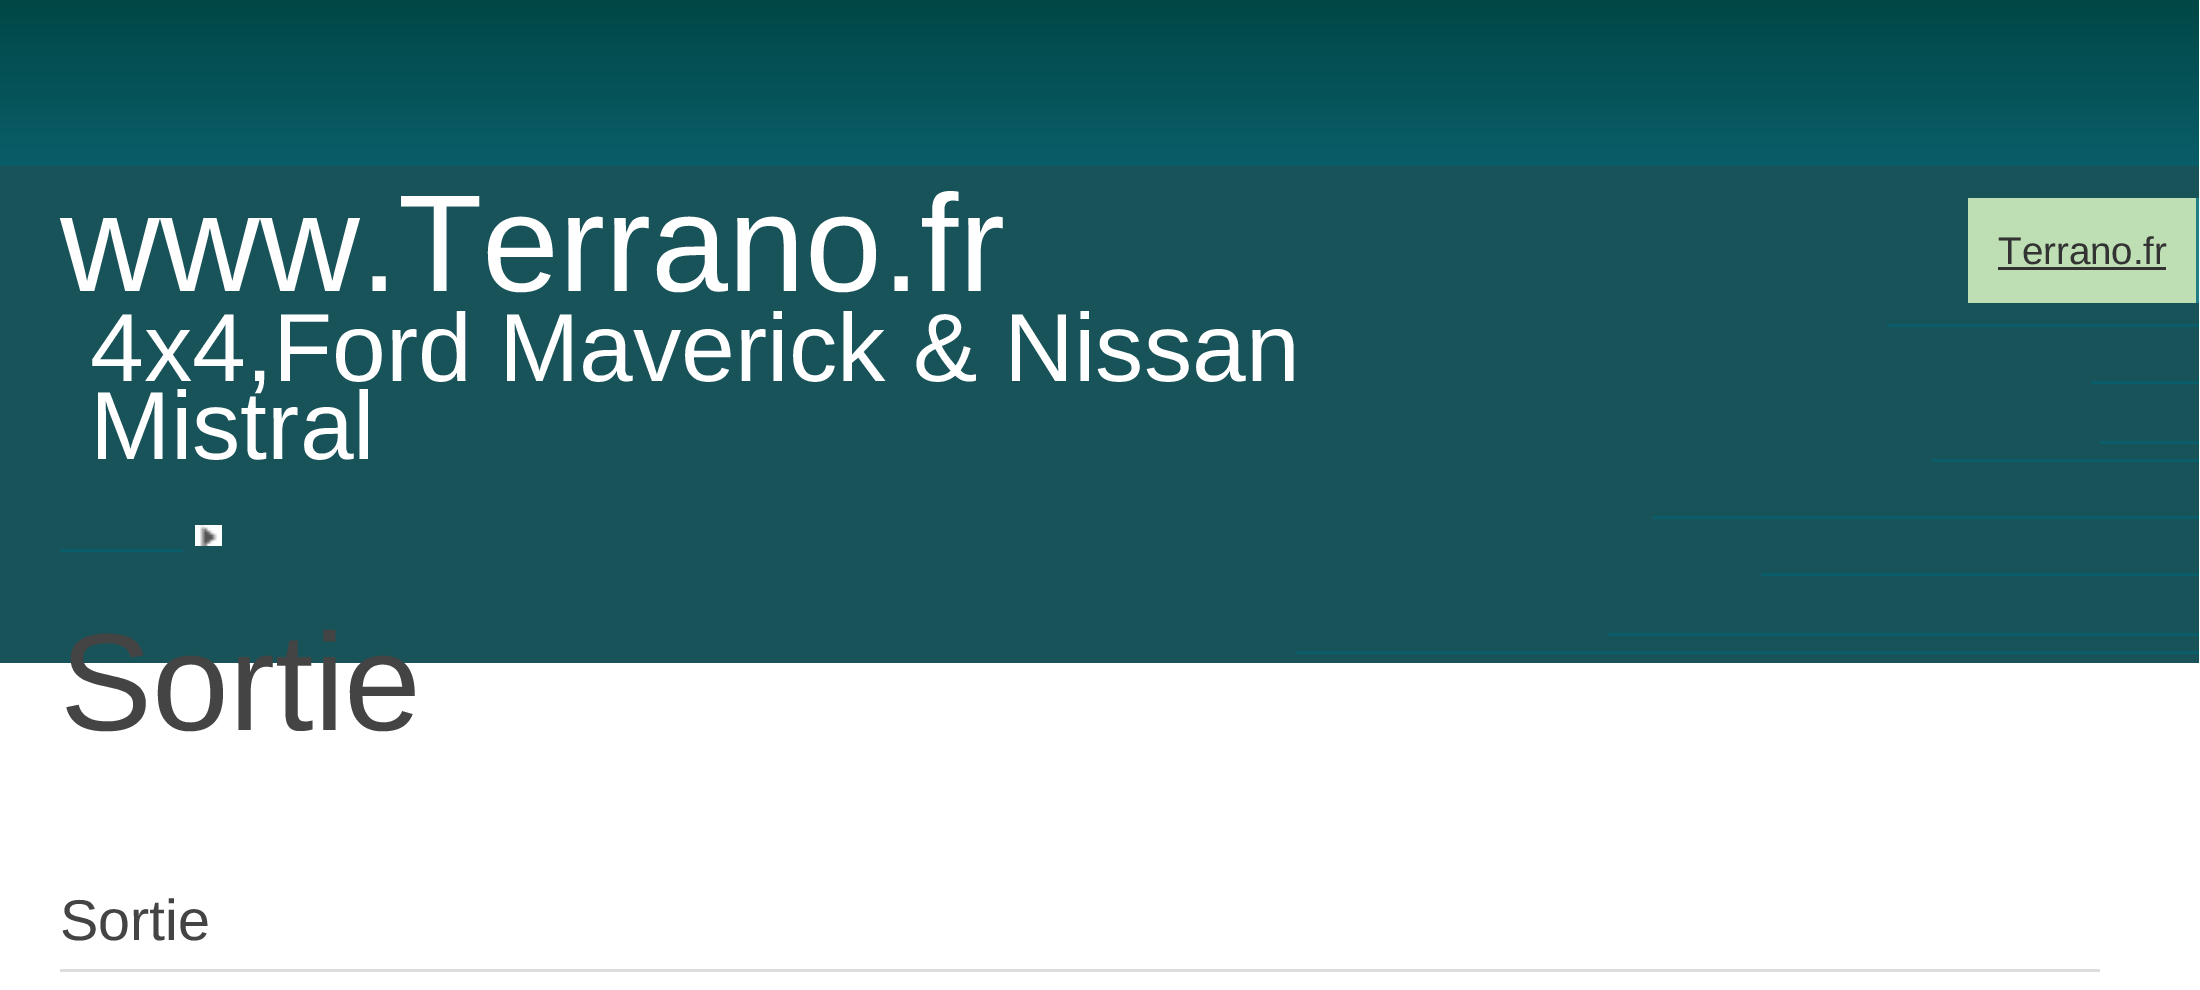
%!PS
<< /PageSize [2200 990] >> setpagedevice
/rgb { 3 { 255 div 3 1 roll } repeat setrgbcolor } def
/font { [ exch dup neg 0 0 3 -1 roll 0 0 ] selectfont } def
/picture { 5 dict begin { /h /w /y /x /name } { exch def } forall
  gsave x y translate w h scale
  w h 8 [w 0 0 h 0 0] name (r) file false 3 colorimage grestore end } def
0 990 translate 1 -1 scale
4 setmiterlimit
255 255 255 rgb
0 0 2200 990 rectfill
gsave 0 0 moveto 2199 0 lineto 2199 663 lineto 0 663 lineto closepath clip newpath
<< /ShadingType 2 /ColorSpace /DeviceRGB /Coords [1100 0 1100 663] /Extend [true true] /Function << /FunctionType 3 /Domain [0 1] /Functions [<< /FunctionType 2 /Domain [0 1] /C0 [0 0.278 0.275] /C1 [0.039 0.369 0.412] /N 1 >> << /FunctionType 2 /Domain [0 1] /C0 [0.094 0.325 0.349] /C1 [0.094 0.325 0.349] /N 1 >>] /Bounds [0.25] /Encode [0 1 0 1] >> >> shfill grestore
[
  [1968 198 228 105 189 223 179]
  [2196 198 3 105 35 125 133]
  [1998 267 168 3 51 51 51]
  [1887 324 312 3 10 94 105]
  [2091 381 108 3 10 94 105]
  [1296 651 903 3 10 94 105]
  [2100 441 99 3 10 94 105]
  [1653 516 546 3 10 94 105]
  [1761 573 438 3 10 94 105]
  [1608 633 591 3 10 94 105]
  [1932 459 267 3 10 94 105]
] { aload pop rgb rectfill } forall
(img/1.rgb) 195 525 27 21 picture
60 549 123 3 rectfill
221 221 221 rgb
60 969 2040 3 rectfill
/LiberationSans-Regular 138.25 font
255 255 255 rgb
60 291 moveto (www.Terrano.fr) show
/LiberationSans-Regular 96.75 font
90 381 moveto (4x4,Ford Maverick & Nissan) show
90 459 moveto (Mistral) show
/LiberationSans-Regular 38.5 font
51 51 51 rgb
1998 264 moveto (Terrano.fr) show
/LiberationSans-Regular 138.25 font
68 68 68 rgb
60 730 moveto (Sortie) show
/LiberationSans-Regular 57.5 font
60 940 moveto (Sortie) show
showpage
